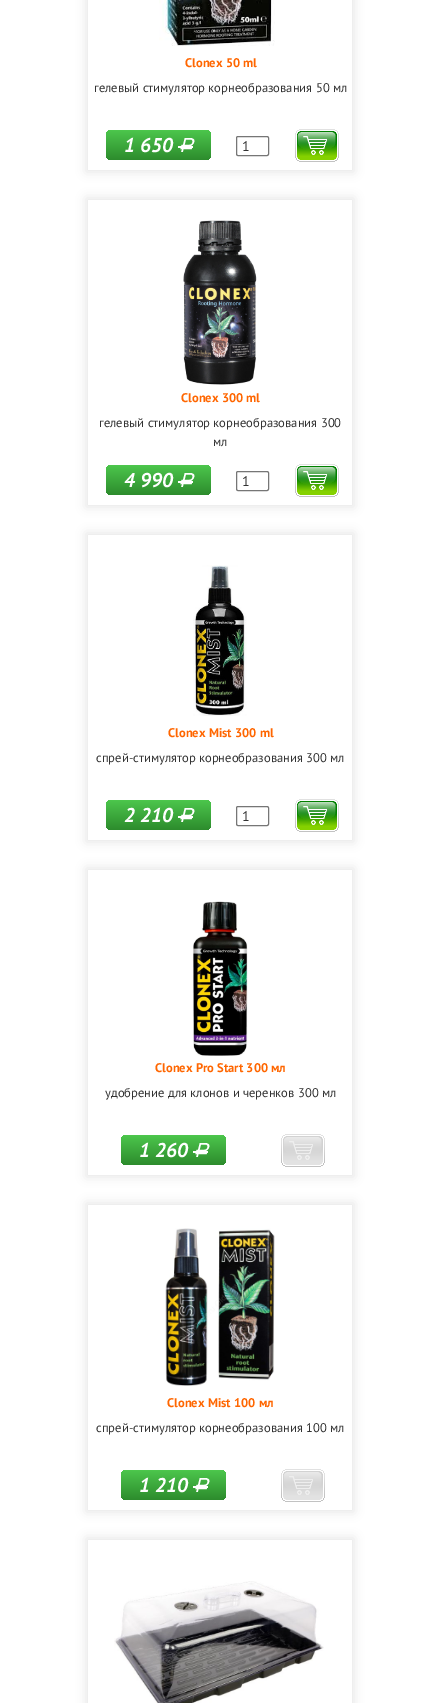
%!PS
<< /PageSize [441 1703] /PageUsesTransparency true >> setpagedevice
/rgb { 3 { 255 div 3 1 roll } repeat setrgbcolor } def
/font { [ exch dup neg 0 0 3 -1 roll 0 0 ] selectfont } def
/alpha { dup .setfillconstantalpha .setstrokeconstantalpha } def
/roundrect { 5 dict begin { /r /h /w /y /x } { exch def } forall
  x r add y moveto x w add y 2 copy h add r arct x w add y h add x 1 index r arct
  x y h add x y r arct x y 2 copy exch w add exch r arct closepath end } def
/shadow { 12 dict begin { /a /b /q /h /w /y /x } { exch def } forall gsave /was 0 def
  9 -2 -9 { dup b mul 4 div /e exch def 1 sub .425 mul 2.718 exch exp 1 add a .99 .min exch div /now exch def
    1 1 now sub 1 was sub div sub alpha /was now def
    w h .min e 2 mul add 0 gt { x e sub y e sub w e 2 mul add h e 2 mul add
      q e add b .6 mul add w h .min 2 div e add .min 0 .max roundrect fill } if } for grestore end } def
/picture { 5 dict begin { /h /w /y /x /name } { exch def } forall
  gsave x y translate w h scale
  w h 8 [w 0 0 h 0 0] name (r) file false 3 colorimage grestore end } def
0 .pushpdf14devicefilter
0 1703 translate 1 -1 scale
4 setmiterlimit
255 255 255 rgb
0 0 441 1703 rectfill
gsave
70 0 moveto 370 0 lineto 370 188 lineto 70 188 lineto closepath 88 -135 moveto 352 -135 lineto 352 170 lineto 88 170 lineto closepath eoclip newpath
229 229 229 rgb
86 -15 268 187 0 5 1 shadow
grestore
(img/1.rgb) 159 0 116 46 picture
gsave 106 130 105 30 5 roundrect clip newpath
<< /ShadingType 2 /ColorSpace /DeviceRGB /Coords [159 160 159 130] /Extend [true true] /Function << /FunctionType 2 /Domain [0 1] /C0 [0.176 0.549 0.176] /C1 [0.298 0.776 0.298] /N 1 >> >> shfill grestore
178 146 15 2 rectfill
118 118 118 rgb
236.5 136.5 32 19 1.5 roundrect stroke
(img/2.rgb) 295 129 44 33 picture
gsave
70 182 moveto 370 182 lineto 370 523 lineto 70 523 lineto closepath 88 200 moveto 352 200 lineto 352 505 lineto 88 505 lineto closepath eoclip newpath
229 229 229 rgb
86 198 268 309 0 5 1 shadow
grestore
(img/3.rgb) 183 220 74 165 picture
gsave 106 465 105 30 5 roundrect clip newpath
<< /ShadingType 2 /ColorSpace /DeviceRGB /Coords [159 495 159 465] /Extend [true true] /Function << /FunctionType 2 /Domain [0 1] /C0 [0.176 0.549 0.176] /C1 [0.298 0.776 0.298] /N 1 >> >> shfill grestore
255 255 255 rgb
178 481 15 2 rectfill
118 118 118 rgb
236.5 471.5 32 19 1.5 roundrect stroke
(img/2.rgb) 295 464 44 33 picture
gsave
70 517 moveto 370 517 lineto 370 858 lineto 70 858 lineto closepath 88 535 moveto 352 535 lineto 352 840 lineto 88 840 lineto closepath eoclip newpath
229 229 229 rgb
86 533 268 309 0 5 1 shadow
grestore
(img/4.rgb) 193 565 54 151 picture
gsave 106 800 105 30 5 roundrect clip newpath
<< /ShadingType 2 /ColorSpace /DeviceRGB /Coords [159 830 159 800] /Extend [true true] /Function << /FunctionType 2 /Domain [0 1] /C0 [0.176 0.549 0.176] /C1 [0.298 0.776 0.298] /N 1 >> >> shfill grestore
255 255 255 rgb
178 816 15 2 rectfill
118 118 118 rgb
236.5 806.5 32 19 1.5 roundrect stroke
(img/2.rgb) 295 799 44 33 picture
gsave
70 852 moveto 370 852 lineto 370 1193 lineto 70 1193 lineto closepath 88 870 moveto 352 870 lineto 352 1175 lineto 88 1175 lineto closepath eoclip newpath
229 229 229 rgb
86 868 268 309 0 5 1 shadow
grestore
(img/5.rgb) 192 901 56 155 picture
gsave 121 1135 105 30 5 roundrect clip newpath
<< /ShadingType 2 /ColorSpace /DeviceRGB /Coords [174 1165 174 1135] /Extend [true true] /Function << /FunctionType 2 /Domain [0 1] /C0 [0.176 0.549 0.176] /C1 [0.298 0.776 0.298] /N 1 >> >> shfill grestore
255 255 255 rgb
193 1151 15 2 rectfill
(img/6.rgb) 281 1134 44 33 picture
gsave
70 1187 moveto 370 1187 lineto 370 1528 lineto 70 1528 lineto closepath 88 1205 moveto 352 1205 lineto 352 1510 lineto 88 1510 lineto closepath eoclip newpath
229 229 229 rgb
86 1203 268 309 0 5 1 shadow
grestore
(img/7.rgb) 165 1228 110 158 picture
gsave 121 1470 105 30 5 roundrect clip newpath
<< /ShadingType 2 /ColorSpace /DeviceRGB /Coords [174 1500 174 1470] /Extend [true true] /Function << /FunctionType 2 /Domain [0 1] /C0 [0.176 0.549 0.176] /C1 [0.298 0.776 0.298] /N 1 >> >> shfill grestore
193 1486 15 2 rectfill
(img/6.rgb) 281 1469 44 33 picture
gsave
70 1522 moveto 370 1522 lineto 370 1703 lineto 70 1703 lineto closepath 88 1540 moveto 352 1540 lineto 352 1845 lineto 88 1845 lineto closepath eoclip newpath
229 229 229 rgb
86 1538 268 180 0 5 1 shadow
grestore
(img/8.rgb) 114 1581 210 122 picture
/PTSans-Bold 12.6 font
255 102 0 rgb
185 67 moveto (Clonex 50 ml) show
/PTSans-Regular 12.6 font
51 51 51 rgb
94 92 moveto (гелевый стимулятор корнеобразования 50 мл) show
/PTSans-BoldItalic 20 font
255 255 255 rgb
124 152 moveto (1 650) show
/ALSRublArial-Italic 20 font
178 152 moveto (Р) show
/PTSans-Regular 14 font
51 51 51 rgb
242 151 moveto (1) show
/PTSans-Bold 12.6 font
255 102 0 rgb
181 402 moveto (Clonex 300 ml) show
/PTSans-Regular 12.6 font
51 51 51 rgb
99 427 moveto (гелевый стимулятор корнеобразования 300) show
213 446 moveto (мл) show
/PTSans-BoldItalic 20 font
255 255 255 rgb
124 487 moveto (4 990) show
/ALSRublArial-Italic 20 font
178 487 moveto (Р) show
/PTSans-Regular 14 font
51 51 51 rgb
242 486 moveto (1) show
/PTSans-Bold 12.6 font
255 102 0 rgb
168 737 moveto (Clonex Mist 300 ml) show
/PTSans-Regular 12.6 font
51 51 51 rgb
96 762 moveto (спрей-стимулятор корнеобразования 300 мл) show
/PTSans-BoldItalic 20 font
255 255 255 rgb
124 822 moveto (2 210) show
/ALSRublArial-Italic 20 font
178 822 moveto (Р) show
/PTSans-Regular 14 font
51 51 51 rgb
242 821 moveto (1) show
/PTSans-Bold 12.6 font
255 102 0 rgb
155 1072 moveto (Clonex Pro Start 300 мл) show
/PTSans-Regular 12.6 font
51 51 51 rgb
105 1097 moveto (удобрение для клонов и черенков 300 мл) show
/PTSans-BoldItalic 20 font
255 255 255 rgb
139 1157 moveto (1 260) show
/ALSRublArial-Italic 20 font
193 1157 moveto (Р) show
/PTSans-Bold 12.6 font
255 102 0 rgb
167 1407 moveto (Clonex Mist 100 мл) show
/PTSans-Regular 12.6 font
51 51 51 rgb
96 1432 moveto (спрей-стимулятор корнеобразования 100 мл) show
/PTSans-BoldItalic 20 font
255 255 255 rgb
139 1492 moveto (1 210) show
/ALSRublArial-Italic 20 font
193 1492 moveto (Р) show
.poppdf14devicefilter showpage
